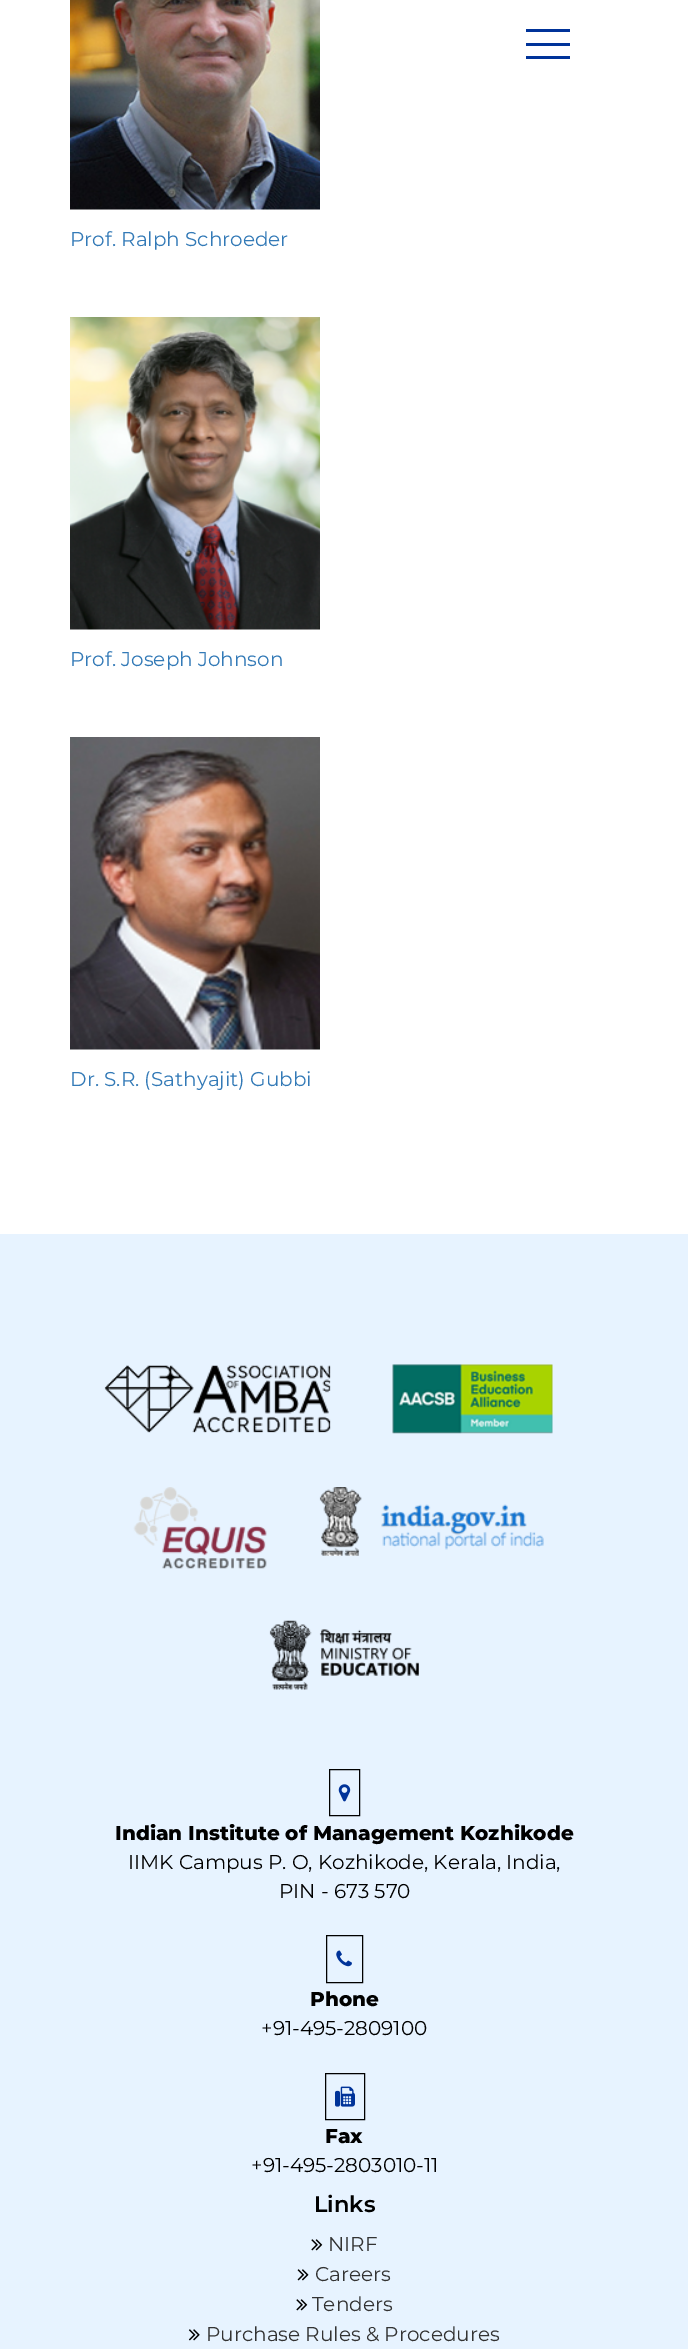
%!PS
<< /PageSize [688 2349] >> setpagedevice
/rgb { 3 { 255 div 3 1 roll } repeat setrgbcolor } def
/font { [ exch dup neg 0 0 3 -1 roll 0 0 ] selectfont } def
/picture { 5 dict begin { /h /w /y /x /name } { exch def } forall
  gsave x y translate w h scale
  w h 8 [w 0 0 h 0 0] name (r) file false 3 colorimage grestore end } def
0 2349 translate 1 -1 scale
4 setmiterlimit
255 255 255 rgb
0 0 688 2349 rectfill
[
  [526 29 44 3 0 51 153]
  [526 43 44 3 0 51 153]
  [526 56 44 3 0 51 153]
] { aload pop rgb rectfill } forall
(img/1.rgb) 70 0 250 210 picture
(img/2.rgb) 70 317 250 313 picture
(img/3.rgb) 70 737 250 313 picture
231 243 255 rgb
0 1234 688 1115 rectfill
(img/4.rgb) 104 1365 227 68 picture
(img/5.rgb) 392 1364 161 70 picture
(img/6.rgb) 133 1487 134 82 picture
(img/7.rgb) 319 1487 225 69 picture
(img/8.rgb) 269 1620 150 70 picture
0 0 0 rgb
329.5 1769.5 30 46 rectstroke
(img/9.rgb) 338 1784 13 18 picture
326.5 1935.5 36 47 rectstroke
(img/10.rgb) 336 1950 16 17 picture
325.5 2073.5 39 46 rectstroke
(img/11.rgb) 335 2086 20 21 picture
(img/12.rgb) 311 2239 12 12 picture
(img/13.rgb) 297 2269 12 12 picture
(img/12.rgb) 296 2299 12 12 picture
(img/14.rgb) 188 2329 12 12 picture
/Montserrat-Regular 20 font
51 122 183 rgb
[
  [(Prof. Ralph Schroeder) 70 246]
  [(Prof. Joseph Johnson) 70 666]
  [(Dr. S.R. \(Sathyajit\) Gubbi) 70 1086]
] { aload pop moveto show } forall
/Montserrat-ExtraBold 20 font
0 0 0 rgb
115 1840 moveto (Indian Institute of Management Kozhikode) show
/Montserrat-Regular 20 font
128 1869 moveto (IIMK Campus P. O, Kozhikode, Kerala, India,) show
279 1898 moveto (PIN - 673 570) show
/Montserrat-ExtraBold 20 font
310 2006 moveto (Phone) show
/Montserrat-Regular 20 font
261 2035 moveto (+91-495-2809100) show
/Montserrat-ExtraBold 20 font
325 2143 moveto (Fax) show
/Montserrat-Regular 20 font
251 2172 moveto (+91-495-2803010-11) show
/Montserrat-SemiBold 22.5 font
314 2212 moveto (Links) show
/Montserrat-Regular 20 font
51 51 51 rgb
[
  [(NIRF) 328 2251]
  [(Careers) 315 2281]
  [(Tenders) 312 2311]
  [(Purchase Rules & Procedures) 206 2341]
] { aload pop moveto show } forall
showpage
